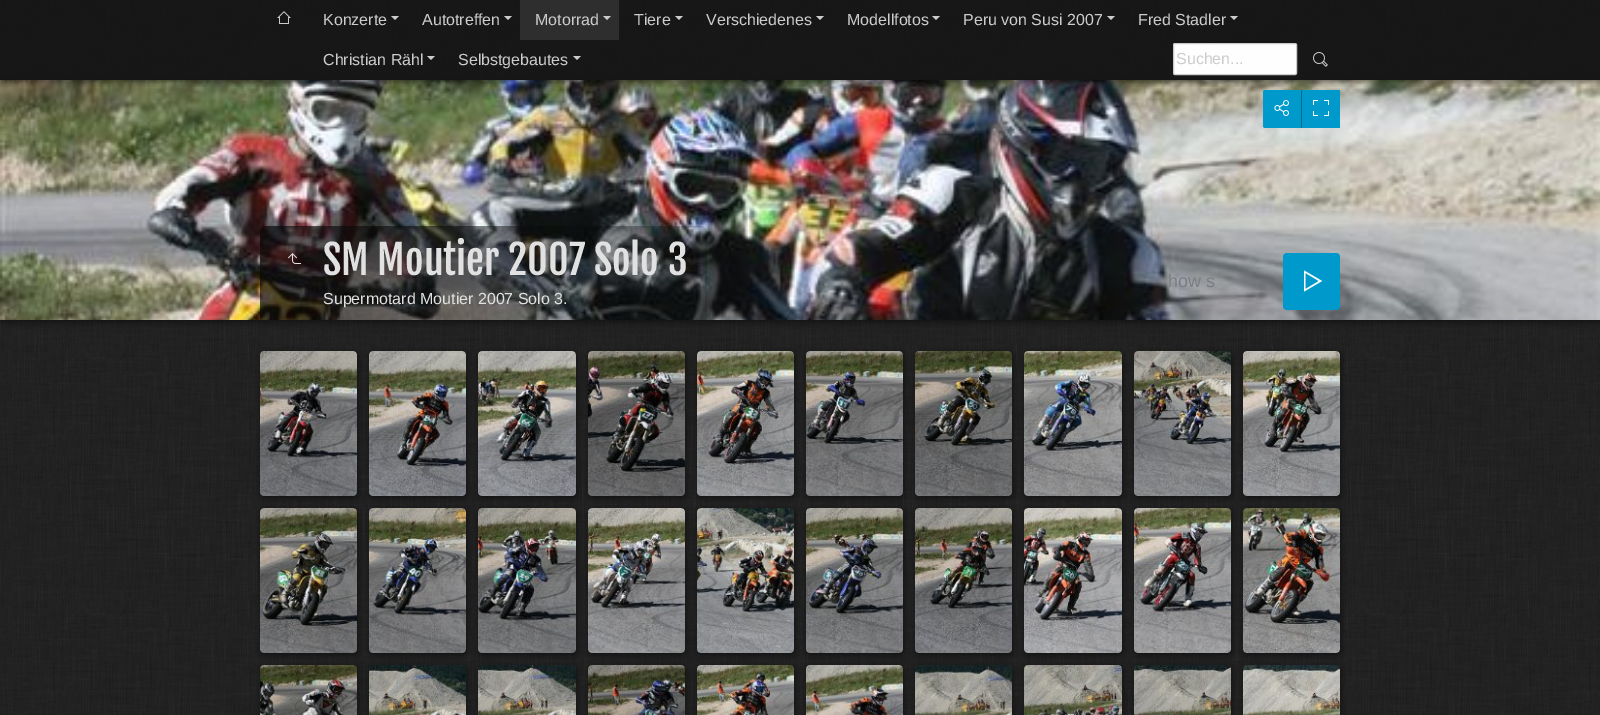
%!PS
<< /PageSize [1600 715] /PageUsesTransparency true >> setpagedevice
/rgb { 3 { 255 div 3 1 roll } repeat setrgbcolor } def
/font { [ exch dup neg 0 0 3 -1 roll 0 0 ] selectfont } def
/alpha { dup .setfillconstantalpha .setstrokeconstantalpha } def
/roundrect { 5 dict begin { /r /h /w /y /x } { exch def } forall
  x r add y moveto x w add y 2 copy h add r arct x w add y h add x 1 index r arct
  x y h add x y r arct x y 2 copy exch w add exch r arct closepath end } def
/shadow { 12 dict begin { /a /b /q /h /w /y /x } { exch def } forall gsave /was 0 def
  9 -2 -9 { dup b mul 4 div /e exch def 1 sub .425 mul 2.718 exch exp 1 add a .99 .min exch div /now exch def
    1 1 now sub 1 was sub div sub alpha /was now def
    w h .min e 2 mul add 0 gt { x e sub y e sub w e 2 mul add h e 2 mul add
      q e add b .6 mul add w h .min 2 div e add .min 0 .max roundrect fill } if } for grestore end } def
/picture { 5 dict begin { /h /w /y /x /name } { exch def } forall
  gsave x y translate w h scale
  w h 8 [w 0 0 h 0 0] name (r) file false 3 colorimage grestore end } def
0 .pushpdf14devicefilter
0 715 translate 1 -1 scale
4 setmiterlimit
34 34 34 rgb
0 0 1600 715 rectfill
(img/1.rgb) 0 0 1600 715 picture
0 0 0 rgb
1 82 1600 240 0 3 0.5 shadow
(img/4.rgb) 0 80 1600 240 picture
0 153 204 rgb
1265 90 moveto 1301 90 lineto 1301 128 lineto 1265 128 lineto 1264 128 1263 127 1263 126 curveto 1263 92 lineto 1263 91 1264 90 1265 90 curveto closepath fill
1302 90 38 38 rectfill
0 107 143 rgb
1301 90 1 38 rectfill
gsave
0 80 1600 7 rectclip
0 0 0 rgb
1 2 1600 80 0 3 0.5 shadow
grestore
0.8 alpha
20 20 20 rgb
0 0 1600 80 rectfill
1 alpha
(img/2.rgb) 277 11 14 13 picture
204 204 204 rgb
391 16 moveto 399 16 lineto 395 20 lineto closepath fill
504 16 moveto 512 16 lineto 508 20 lineto closepath fill
46 46 46 rgb
520 0 99 40 rectfill
204 204 204 rgb
603 16 moveto 611 16 lineto 607 20 lineto closepath fill
675 16 moveto 683 16 lineto 679 20 lineto closepath fill
816 16 moveto 824 16 lineto 820 20 lineto closepath fill
932 16 moveto 940 16 lineto 936 20 lineto closepath fill
1107 16 moveto 1115 16 lineto 1111 20 lineto closepath fill
1230 16 moveto 1238 16 lineto 1234 20 lineto closepath fill
427 56 moveto 435 56 lineto 431 60 lineto closepath fill
573 56 moveto 581 56 lineto 577 60 lineto closepath fill
254 254 254 rgb
1173.5 43.5 123 31 1.5 roundrect gsave fill grestore
202 202 202 rgb
stroke
(img/3.rgb) 1313 52 15 15 picture
(img/5.rgb) 288 253 13 11 picture
(img/6.rgb) 1274 100 15 16 picture
(img/7.rgb) 1313 100 16 16 picture
0 153 204 rgb
1283 253 57 57 4 roundrect fill
255 255 255 rgb
1305.5 273 moveto 1319 281 lineto 1305.5 289 lineto closepath 1304 270.5 moveto 1304 291.5 lineto 1322 281 lineto closepath fill
0 0 0 rgb
261 353 97 145 4 3 0.5 shadow
(img/8.rgb) 260 351 97 145 picture
370 353 97 145 4 3 0.5 shadow
(img/9.rgb) 369 351 97 145 picture
479 353 98 145 4 3 0.5 shadow
(img/10.rgb) 478 351 98 145 picture
589 353 97 145 4 3 0.5 shadow
(img/11.rgb) 588 351 97 145 picture
698 353 97 145 4 3 0.5 shadow
(img/12.rgb) 697 351 97 145 picture
807 353 97 145 4 3 0.5 shadow
(img/13.rgb) 806 351 97 145 picture
916 353 97 145 4 3 0.5 shadow
(img/14.rgb) 915 351 97 145 picture
1025 353 98 145 4 3 0.5 shadow
(img/15.rgb) 1024 351 98 145 picture
1135 353 97 145 4 3 0.5 shadow
(img/16.rgb) 1134 351 97 145 picture
1244 353 97 145 4 3 0.5 shadow
(img/17.rgb) 1243 351 97 145 picture
261 510 97 145 4 3 0.5 shadow
0.4 alpha
68 68 68 rgb
260 508 97 145 4 roundrect fill
1 alpha
(img/18.rgb) 260 508 97 145 picture
0 0 0 rgb
370 510 97 145 4 3 0.5 shadow
0.4 alpha
68 68 68 rgb
369 508 97 145 4 roundrect fill
1 alpha
(img/19.rgb) 369 508 97 145 picture
0 0 0 rgb
479 510 98 145 4 3 0.5 shadow
0.4 alpha
68 68 68 rgb
478 508 98 145 4 roundrect fill
1 alpha
(img/20.rgb) 478 508 98 145 picture
0 0 0 rgb
589 510 97 145 4 3 0.5 shadow
0.4 alpha
68 68 68 rgb
588 508 97 145 4 roundrect fill
1 alpha
(img/21.rgb) 588 508 97 145 picture
0 0 0 rgb
698 510 97 145 4 3 0.5 shadow
0.4 alpha
68 68 68 rgb
697 508 97 145 4 roundrect fill
1 alpha
(img/22.rgb) 697 508 97 145 picture
0 0 0 rgb
807 510 97 145 4 3 0.5 shadow
0.4 alpha
68 68 68 rgb
806 508 97 145 4 roundrect fill
1 alpha
(img/23.rgb) 806 508 97 145 picture
0 0 0 rgb
916 510 97 145 4 3 0.5 shadow
0.4 alpha
68 68 68 rgb
915 508 97 145 4 roundrect fill
1 alpha
(img/24.rgb) 915 508 97 145 picture
0 0 0 rgb
1025 510 98 145 4 3 0.5 shadow
0.4 alpha
68 68 68 rgb
1024 508 98 145 4 roundrect fill
1 alpha
(img/25.rgb) 1024 508 98 145 picture
0 0 0 rgb
1135 510 97 145 4 3 0.5 shadow
0.4 alpha
68 68 68 rgb
1134 508 97 145 4 roundrect fill
1 alpha
(img/26.rgb) 1134 508 97 145 picture
0 0 0 rgb
1244 510 97 145 4 3 0.5 shadow
0.4 alpha
68 68 68 rgb
1243 508 97 145 4 roundrect fill
1 alpha
(img/27.rgb) 1243 508 97 145 picture
0 0 0 rgb
261 667 97 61 4 3 0.5 shadow
(img/28.rgb) 260 665 97 50 picture
370 667 97 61 4 3 0.5 shadow
(img/29.rgb) 369 665 97 50 picture
479 667 98 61 4 3 0.5 shadow
(img/30.rgb) 478 665 98 50 picture
589 667 97 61 4 3 0.5 shadow
(img/31.rgb) 588 665 97 50 picture
698 667 97 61 4 3 0.5 shadow
(img/32.rgb) 697 665 97 50 picture
807 667 97 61 4 3 0.5 shadow
(img/33.rgb) 806 665 97 50 picture
916 667 97 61 4 3 0.5 shadow
(img/34.rgb) 915 665 97 50 picture
1025 667 98 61 4 3 0.5 shadow
(img/35.rgb) 1024 665 98 50 picture
1135 667 97 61 4 3 0.5 shadow
(img/36.rgb) 1134 665 97 50 picture
1244 667 97 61 4 3 0.5 shadow
(img/37.rgb) 1243 665 97 50 picture
/LiberationSans-Regular 16 font
204 204 204 rgb
[
  [(Konzerte) 323 25]
  [(Autotreffen) 422 25]
  [(Motorrad) 535 25]
  [(Tiere) 634 25]
  [(Verschiedenes) 706 25]
  [(Modellfotos) 847 25]
  [(Peru von Susi 2007) 963 25]
  [(Fred Stadler) 1138 25]
  [(Christian Rähl) 323 65]
  [(Selbstgebautes) 458 65]
  [(Suchen...) 1176 64]
] { aload pop moveto show } forall
/FjallaOne-Regular 40 font
225 225 225 rgb
323 275 moveto (SM Moutier 2007 Solo 3) show
/LiberationSans-Regular 16 font
323 304 moveto (Supermotard Moutier 2007 Solo 3.) show
/LiberationSans-Regular 18 font
122 126 131 rgb
1168 287 moveto (how s) show
.poppdf14devicefilter showpage
